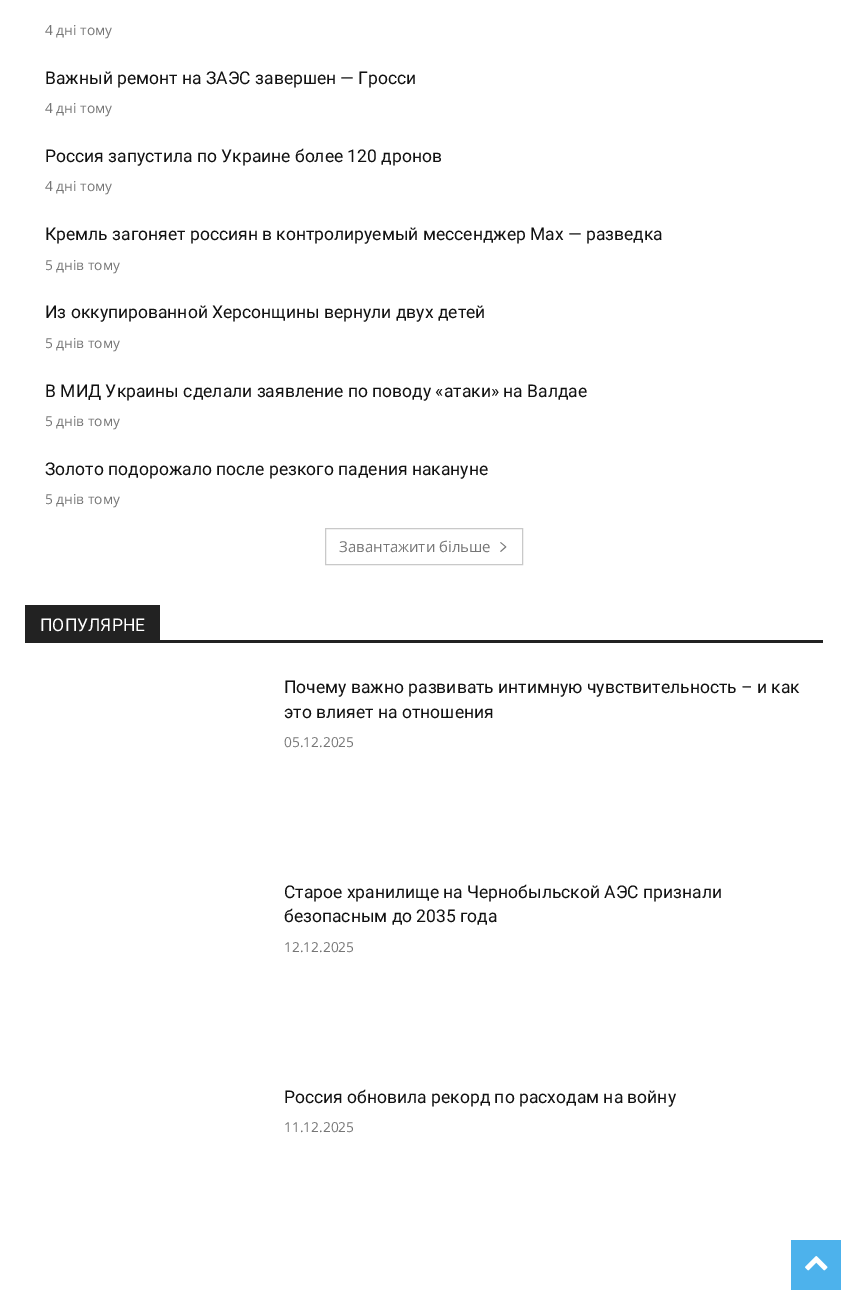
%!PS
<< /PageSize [847 1294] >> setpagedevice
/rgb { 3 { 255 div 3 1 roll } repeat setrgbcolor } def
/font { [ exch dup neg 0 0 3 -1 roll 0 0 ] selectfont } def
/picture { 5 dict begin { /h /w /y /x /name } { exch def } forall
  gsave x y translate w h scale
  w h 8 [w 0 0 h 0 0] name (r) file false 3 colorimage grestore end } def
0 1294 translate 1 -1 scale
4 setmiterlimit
255 255 255 rgb
0 0 847 1294 rectfill
201 201 201 rgb
325.5 528.5 197 36 rectstroke
(img/1.rgb) 500 542 7 10 picture
[
  [25 640 798 3 34 34 34]
  [25 605 135 35 34 34 34]
  [791 1240 50 50 77 178 236]
] { aload pop rgb rectfill } forall
(img/2.rgb) 805 1256 23 15 picture
/OpenSans-Regular 13.75 font
118 118 118 rgb
45 35 moveto (4 дні тому) show
/Roboto-Regular 17.5 font
17 17 17 rgb
45 84 moveto (Важный ремонт на ЗАЭС завершен — Гросси) show
/OpenSans-Regular 13.75 font
118 118 118 rgb
45 113 moveto (4 дні тому) show
/Roboto-Regular 17.5 font
17 17 17 rgb
45 162 moveto (Россия запустила по Украине более 120 дронов) show
/OpenSans-Regular 13.75 font
118 118 118 rgb
45 191 moveto (4 дні тому) show
/Roboto-Regular 17.5 font
17 17 17 rgb
45 240 moveto (Кремль загоняет россиян в контролируемый мессенджер Max — разведка) show
/OpenSans-Regular 13.75 font
118 118 118 rgb
45 270 moveto (5 днів тому) show
/Roboto-Regular 17.5 font
17 17 17 rgb
45 318 moveto (Из оккупированной Херсонщины вернули двух детей) show
/OpenSans-Regular 13.75 font
118 118 118 rgb
45 348 moveto (5 днів тому) show
/Roboto-Regular 17.5 font
17 17 17 rgb
45 397 moveto (В МИД Украины сделали заявление по поводу «атаки» на Валдае) show
/OpenSans-Regular 13.75 font
118 118 118 rgb
45 426 moveto (5 днів тому) show
/Roboto-Regular 17.5 font
17 17 17 rgb
45 475 moveto (Золото подорожало после резкого падения накануне) show
/OpenSans-Regular 13.75 font
118 118 118 rgb
45 504 moveto (5 днів тому) show
/OpenSans-Regular 15 font
339 552 moveto (Завантажити більше) show
/Roboto-Regular 17.5 font
255 255 255 rgb
40 631 moveto (ПОПУЛЯРНЕ) show
17 17 17 rgb
284 693 moveto (Почему важно развивать интимную чувствительность – и как) show
284 718 moveto (это влияет на отношения) show
/OpenSans-Regular 13.75 font
118 118 118 rgb
284 747 moveto (05.12.2025) show
/Roboto-Regular 17.5 font
17 17 17 rgb
284 898 moveto (Старое хранилище на Чернобыльской АЭС признали) show
284 922 moveto (безопасным до 2035 года) show
/OpenSans-Regular 13.75 font
118 118 118 rgb
284 952 moveto (12.12.2025) show
/Roboto-Regular 17.5 font
17 17 17 rgb
284 1103 moveto (Россия обновила рекорд по расходам на войну) show
/OpenSans-Regular 13.75 font
118 118 118 rgb
284 1132 moveto (11.12.2025) show
showpage
